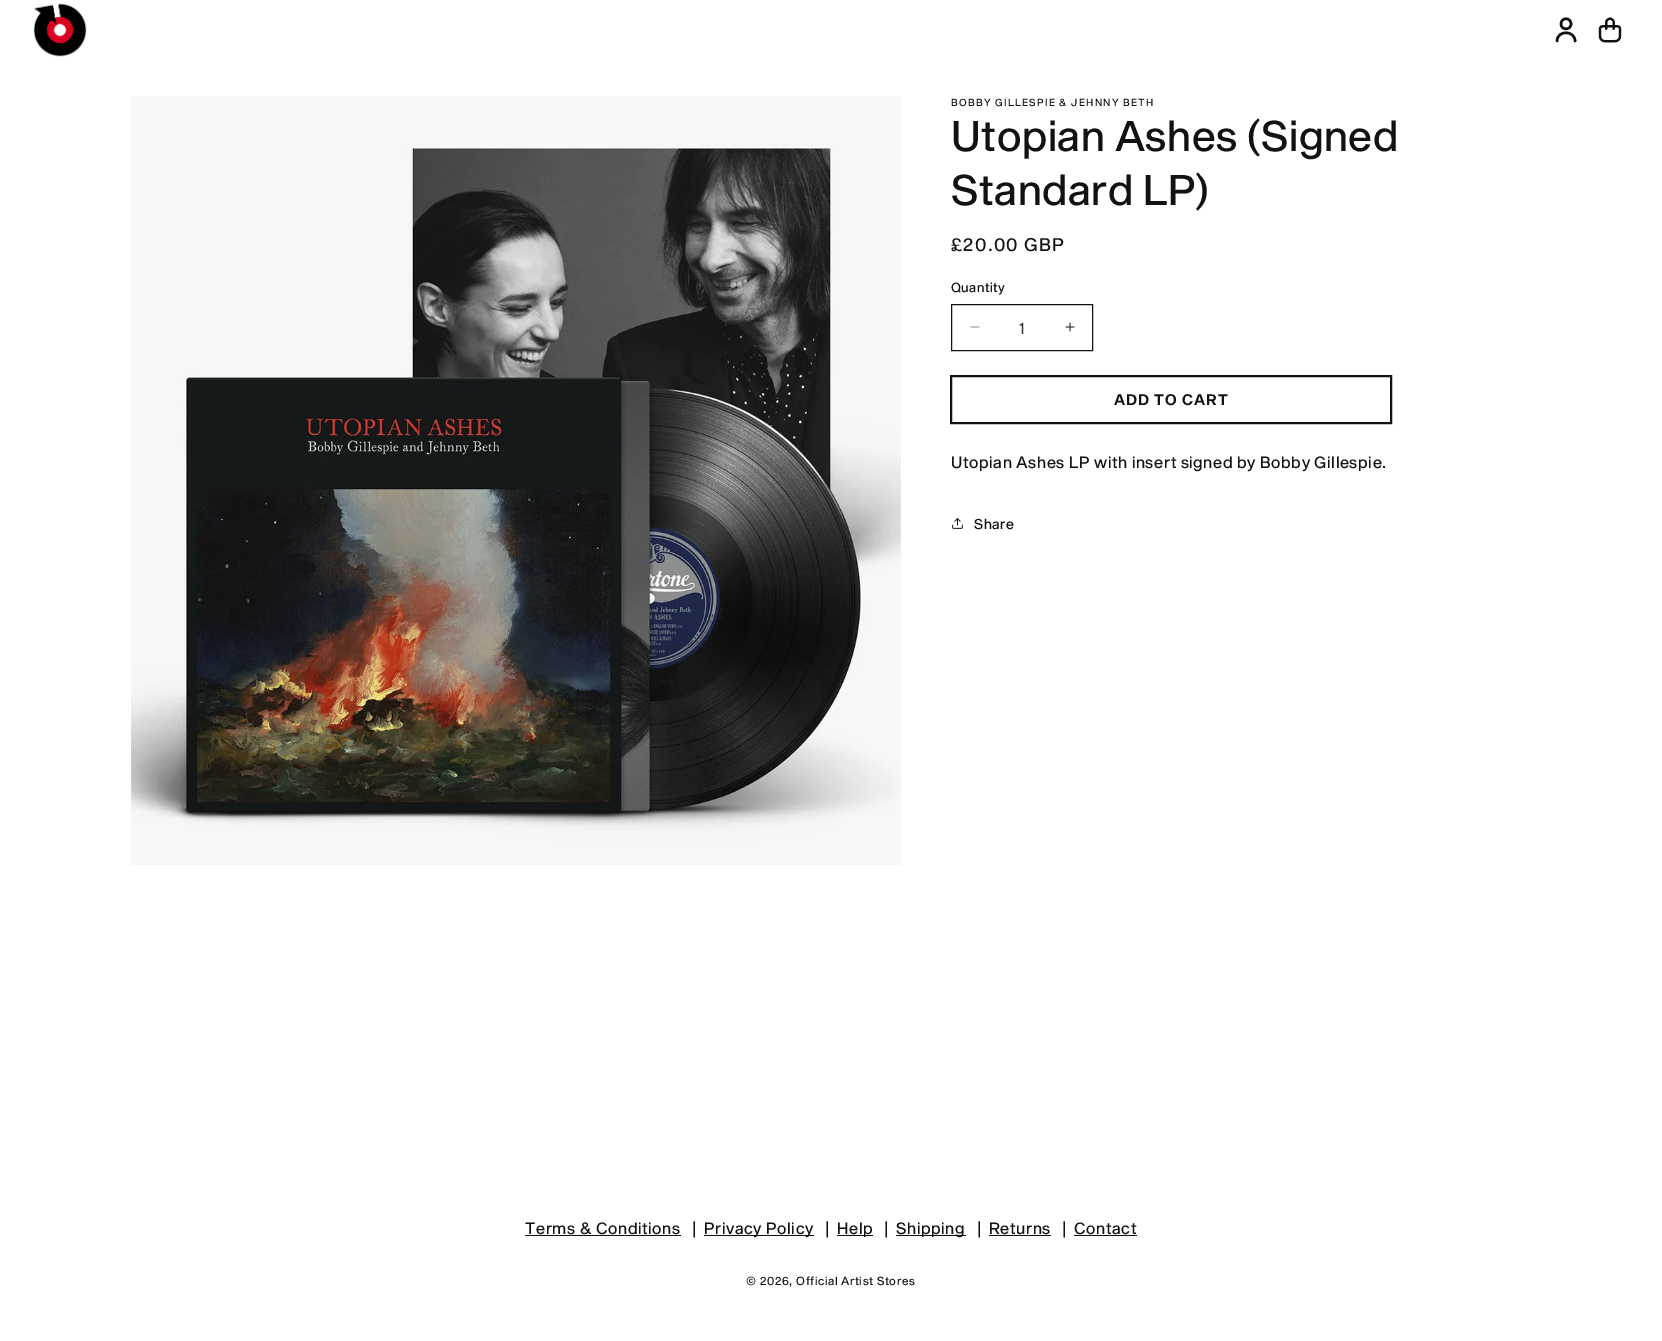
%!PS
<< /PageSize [1662 1341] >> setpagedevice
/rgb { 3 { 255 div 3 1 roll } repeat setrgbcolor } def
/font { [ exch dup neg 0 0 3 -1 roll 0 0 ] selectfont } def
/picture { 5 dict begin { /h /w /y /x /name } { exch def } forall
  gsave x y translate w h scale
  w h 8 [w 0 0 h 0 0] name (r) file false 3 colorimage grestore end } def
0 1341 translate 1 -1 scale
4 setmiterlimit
255 255 255 rgb
0 0 1662 1341 rectfill
(img/1.rgb) 33 3 54 54 picture
18 18 18 rgb
2.5 setlinewidth
1 setlinecap
1 setlinejoin
1557 41 moveto 1557 30 1575 30 1575 41 curveto 1571 24 moveto 1571 30.5 1561 30.5 1561 24 curveto 1561 17 1571 17 1571 24 curveto closepath stroke
(img/2.rgb) 1598 17 24 26 picture
(img/3.rgb) 131 96 770 769 picture
(img/4.rgb) 970 326 10 2 picture
(img/5.rgb) 1065 322 10 10 picture
1 setlinewidth
0 setlinecap
0 setlinejoin
951.5 304.5 141 46 rectstroke
950.5 375.5 441 48 rectstroke
951.5 376.5 439 46 rectstroke
(img/6.rgb) 952 518 11 11 picture
[
  [525 1235 156 1 18 18 18]
  [704 1235 110 1 18 18 18]
  [837 1235 36 1 18 18 18]
  [896 1235 70 1 18 18 18]
  [989 1235 62 1 18 18 18]
  [1074 1235 63 1 18 18 18]
] { aload pop rgb rectfill } forall
/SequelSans-Regular 10 font
951 106 moveto 1.3 0 (BOBBY GILLESPIE & JEHNNY BETH) ashow
/SequelSans-Regular 42 font
951 151 moveto 0.6 0 (Utopian Ashes \(Signed) ashow
951 205 moveto 0.6 0 (Standard LP\)) ashow
/SequelSans-Regular 18 font
951 251 moveto 1.3 0 (£20.00 GBP) ashow
/SequelSans-Regular 13 font
951 292 moveto 0.5 0 (Quantity) ashow
/SequelSans-Regular 16 font
54 54 54 rgb
1019 334 moveto (1) show
/SequelSans-SemiBold 15 font
18 18 18 rgb
1114 405 moveto 1 0 (ADD TO CART) ashow
/SequelSans-Regular 16 font
951 468 moveto 0.6 0 (Utopian Ashes LP with insert signed by Bobby Gillespie.) ashow
/SequelSans-Regular 14 font
974 529 moveto 0.6 0 (Share) ashow
/SequelSans-Regular 16 font
525 1234 moveto 0.6 0 (Terms & Conditions) ashow
692 1234 moveto 0.6 0 (|) ashow
704 1234 moveto 0.6 0 (Privacy Policy) ashow
825 1234 moveto 0.6 0 (|) ashow
837 1234 moveto 0.6 0 (Help) ashow
884 1234 moveto 0.6 0 (|) ashow
896 1234 moveto 0.6 0 (Shipping) ashow
977 1234 moveto 0.6 0 (|) ashow
989 1234 moveto 0.6 0 (Returns) ashow
1062 1234 moveto 0.6 0 (|) ashow
1074 1234 moveto 0.6 0 (Contact) ashow
/SequelSans-Regular 11.5 font
746 1285 moveto 0.6 0 (© 2026, Official Artist Stores) ashow
showpage
